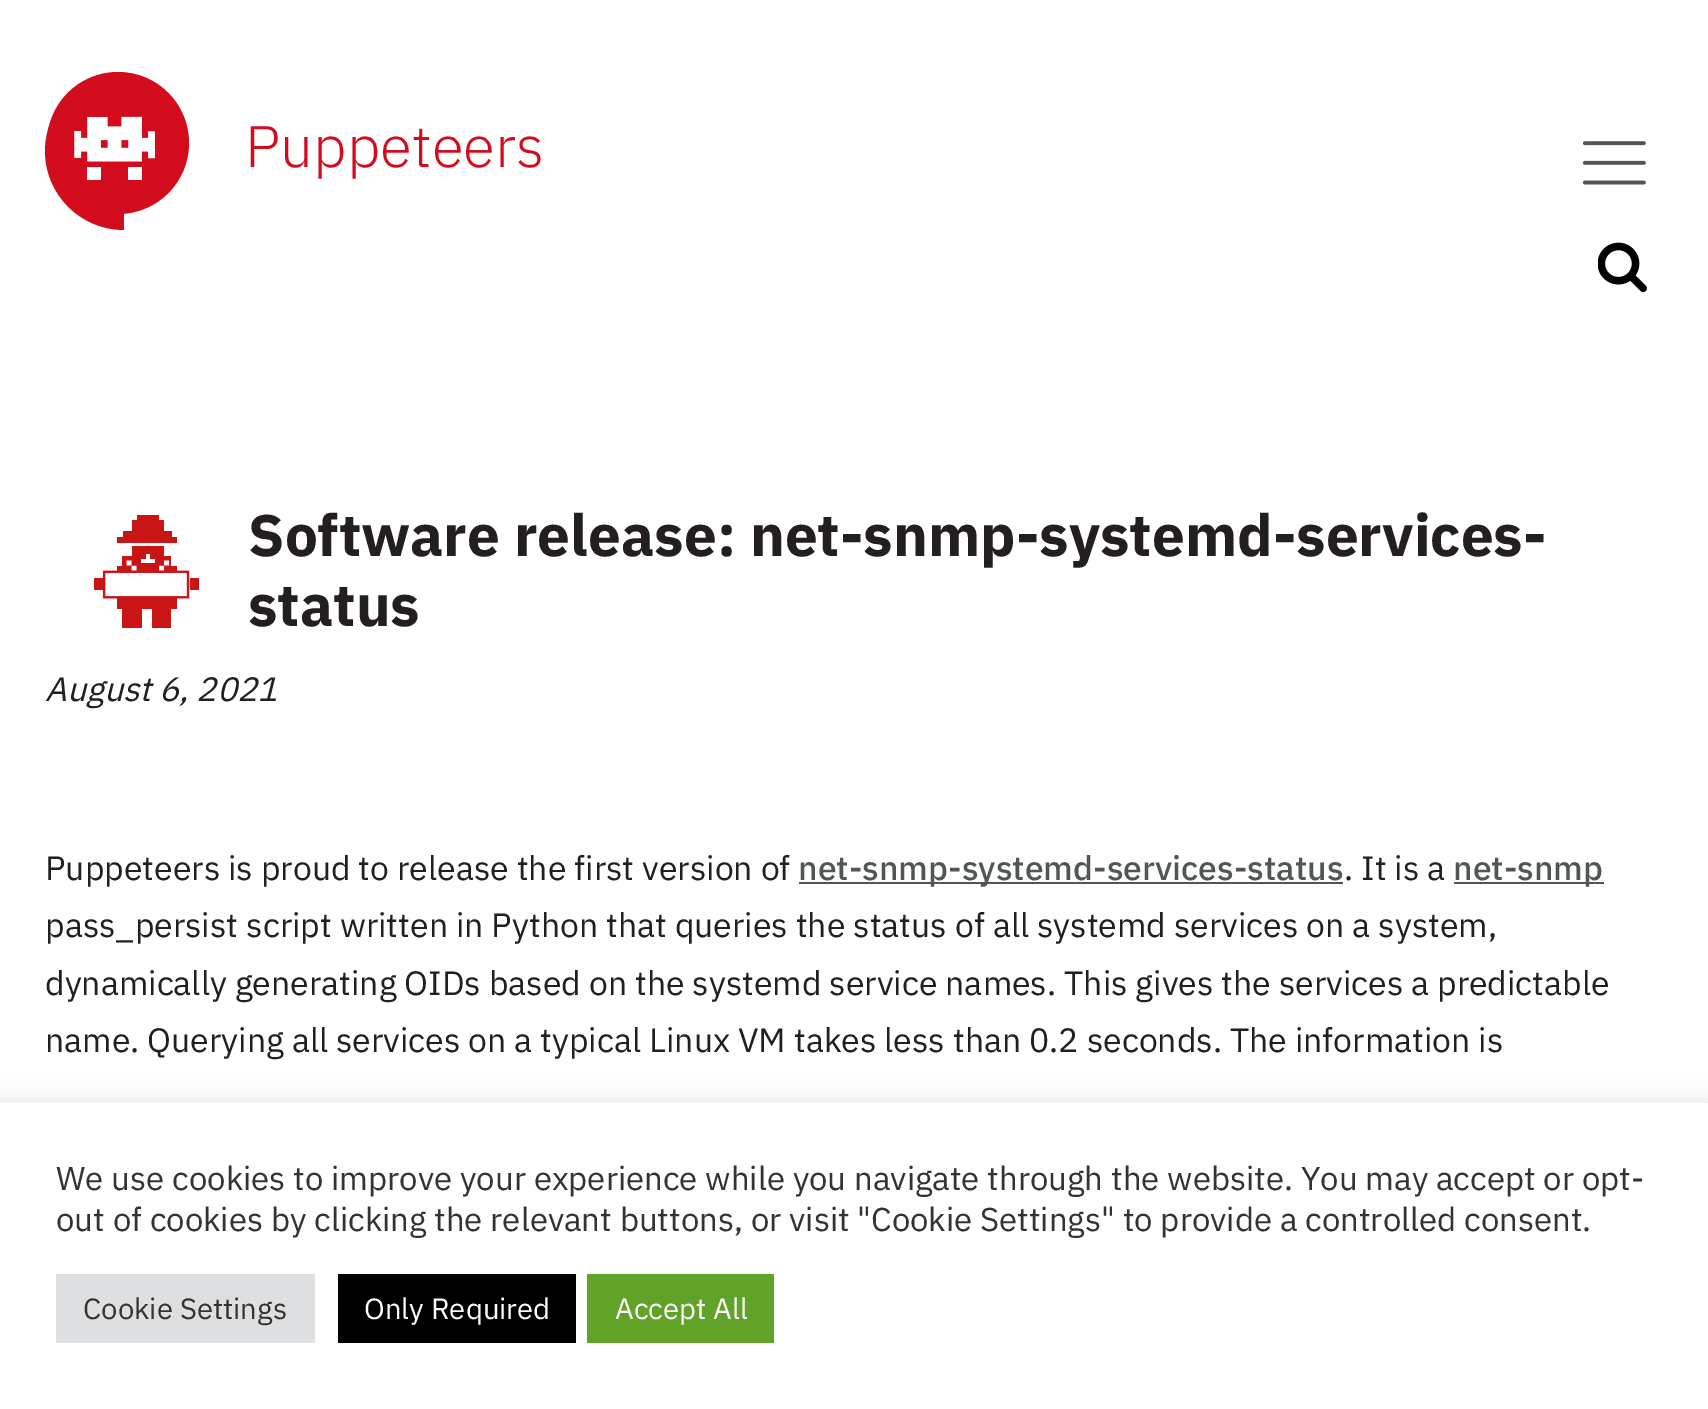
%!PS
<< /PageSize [1708 1409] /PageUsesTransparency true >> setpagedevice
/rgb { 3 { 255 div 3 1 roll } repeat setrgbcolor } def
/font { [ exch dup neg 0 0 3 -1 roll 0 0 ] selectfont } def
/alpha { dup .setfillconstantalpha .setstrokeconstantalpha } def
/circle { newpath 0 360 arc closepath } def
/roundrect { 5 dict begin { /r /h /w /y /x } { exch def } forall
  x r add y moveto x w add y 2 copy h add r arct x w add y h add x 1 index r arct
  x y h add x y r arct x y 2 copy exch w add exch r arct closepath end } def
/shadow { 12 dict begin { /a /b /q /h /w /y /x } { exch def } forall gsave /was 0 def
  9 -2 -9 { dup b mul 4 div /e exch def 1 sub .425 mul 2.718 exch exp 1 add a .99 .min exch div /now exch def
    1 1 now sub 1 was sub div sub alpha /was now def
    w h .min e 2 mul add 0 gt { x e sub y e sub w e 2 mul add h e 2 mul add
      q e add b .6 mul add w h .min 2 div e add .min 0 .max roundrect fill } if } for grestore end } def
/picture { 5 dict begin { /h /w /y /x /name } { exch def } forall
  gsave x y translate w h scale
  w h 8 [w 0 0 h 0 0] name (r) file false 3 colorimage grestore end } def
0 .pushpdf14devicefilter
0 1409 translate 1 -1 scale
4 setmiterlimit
255 255 255 rgb
0 0 1708 1409 rectfill
210 12 28 rgb
124 72 moveto 124 230 lineto 80.5 230 45 194.5 45 151 curveto 45 107.5 80.5 72 124 72 curveto closepath fill
118 143 71 circle fill
(img/1.rgb) 74 116 81 64 picture
(img/2.rgb) 1582 141 64 44 picture
(img/3.rgb) 1598 242 49 51 picture
(img/4.rgb) 94 515 105 113 picture
80 86 86 rgb
799 882 544 2 rectfill
1454 882 150 2 rectfill
172 171 171 rgb
0 1100 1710 309 0 11 0.3 shadow
[
  [0 1103 1708 306 255 255 255]
  [56 1274 259 69 222 223 224]
  [338 1274 238 69 0 0 0]
  [587 1274 187 69 97 162 41]
] { aload pop rgb rectfill } forall
/IBMPlexSans-Light 58.5 font
210 12 28 rgb
245 167 moveto (Puppeteers) show
/IBMPlexSans-Bold 58.5 font
35 31 32 rgb
248 556 moveto (Software release: net-snmp-systemd-services-) show
248 626 moveto (status) show
/IBMPlexSans-Italic 33.75 font
45 701 moveto (August 6, 2021) show
/IBMPlexSans-Regular 33.75 font
45 880 moveto (Puppeteers is proud to release the first version of) show
/IBMPlexSans-Medium 33.75 font
80 86 86 rgb
798 880 moveto (net-snmp-systemd-services-status) show
/IBMPlexSans-Regular 33.75 font
35 31 32 rgb
1344 880 moveto (. It is a) show
/IBMPlexSans-Medium 33.75 font
80 86 86 rgb
1453 880 moveto (net-snmp) show
/IBMPlexSans-Regular 33.75 font
35 31 32 rgb
[
  [(pass_persist script written in Python that queries the status of all systemd services on a system,) 45 937]
  [(dynamically generating OIDs based on the systemd service names. This gives the services a predictable) 45 995]
  [(name. Querying all services on a typical Linux VM takes less than 0.2 seconds. The information is) 45 1052]
] { aload pop moveto show } forall
/IBMPlexSans-Regular 33 font
51 51 51 rgb
56 1190 moveto (We use cookies to improve your experience while you navigate through the website. You may accept or opt-) show
56 1231 moveto (out of cookies by clicking the relevant buttons, or visit "Cookie Settings" to provide a controlled consent.) show
/IBMPlexSans-Regular 29.25 font
83 1319 moveto (Cookie Settings) show
255 255 255 rgb
364 1319 moveto (Only Required) show
615 1319 moveto (Accept All) show
.poppdf14devicefilter showpage
